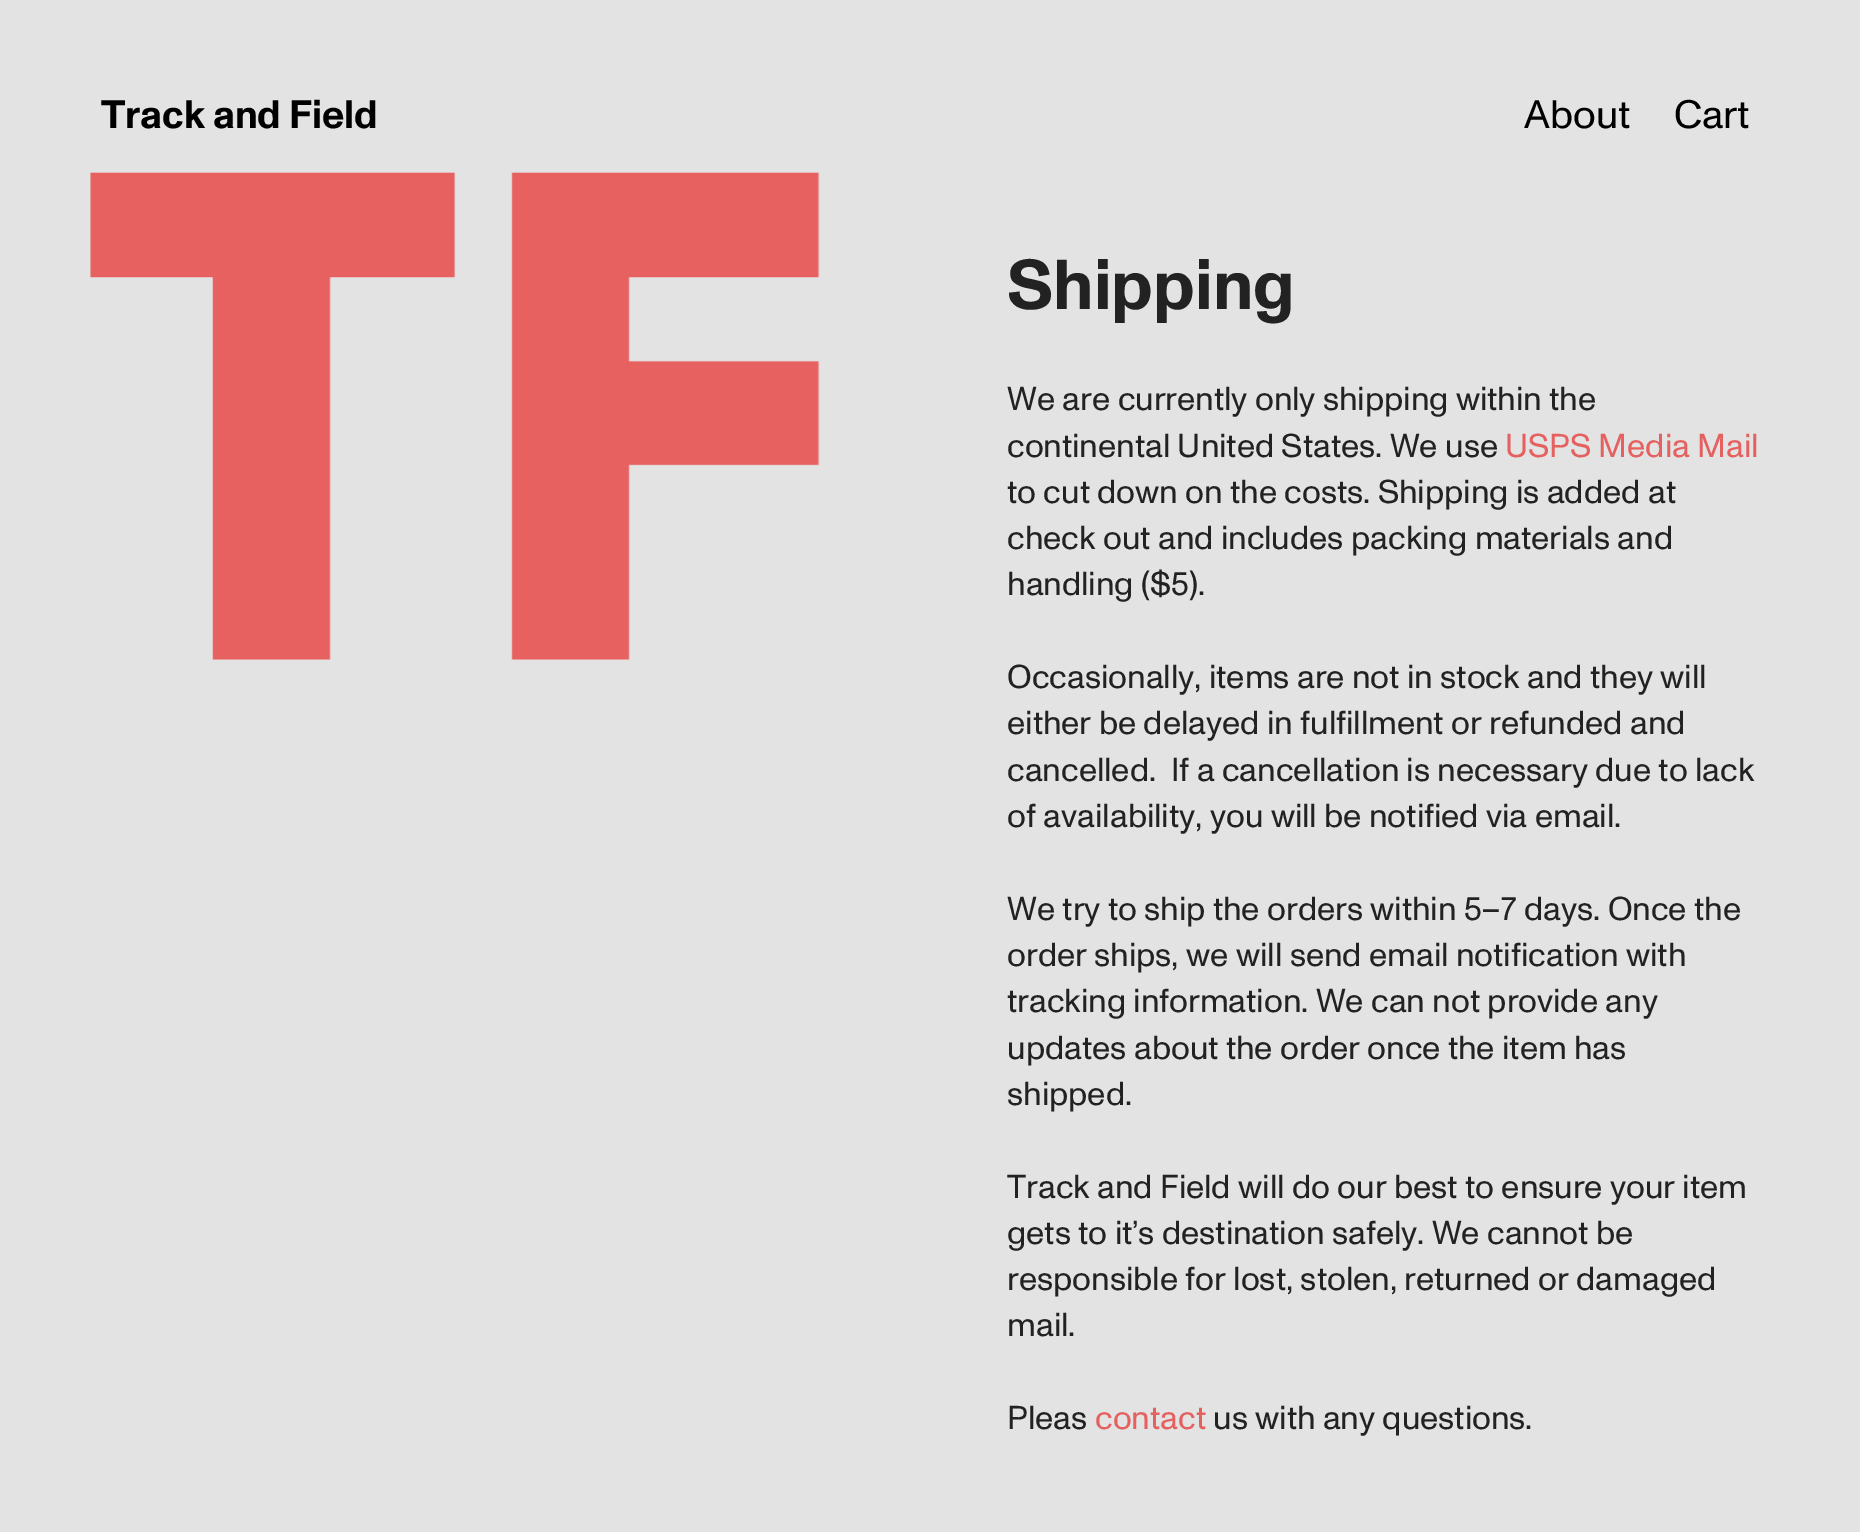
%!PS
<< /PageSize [1860 1532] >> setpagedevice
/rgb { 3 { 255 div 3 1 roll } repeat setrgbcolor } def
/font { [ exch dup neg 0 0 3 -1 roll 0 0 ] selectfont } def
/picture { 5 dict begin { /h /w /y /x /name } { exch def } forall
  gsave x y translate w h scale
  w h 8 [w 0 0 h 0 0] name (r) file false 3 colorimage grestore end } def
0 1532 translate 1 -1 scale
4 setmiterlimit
227 227 227 rgb
0 0 1860 1532 rectfill
(img/1.rgb) 90 172 730 488 picture
/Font-Bold 39.75 font
0 0 0 rgb
101 128 moveto (Track and Field) show
/Font-Regular 39.75 font
1524 128 moveto (About) show
1674 128 moveto (Cart) show
/Font-Bold 70.5 font
34 34 34 rgb
1007 309 moveto (Shipping) show
/Font-Regular 33.1 font
1007 410 moveto (We are currently only shipping within the) show
1007 457 moveto (continental United States. We use) show
229 97 96 rgb
1505 457 moveto (USPS Media Mail) show
34 34 34 rgb
[
  [(to cut down on the costs. Shipping is added at) 1007 503]
  [(check out and includes packing materials and) 1007 549]
  [(handling \($5\).) 1007 595]
  [(Occasionally, items are not in stock and they will) 1007 688]
  [(either be delayed in fulfillment or refunded and) 1007 734]
  [(cancelled.  If a cancellation is necessary due to lack) 1007 781]
  [(of availability, you will be notified via email.) 1007 827]
  [(We try to ship the orders within 5–7 days. Once the) 1007 920]
  [(order ships, we will send email notification with) 1007 966]
  [(tracking information. We can not provide any) 1007 1012]
  [(updates about the order once the item has) 1007 1059]
  [(shipped.) 1007 1105]
  [(Track and Field will do our best to ensure your item) 1007 1198]
  [(gets to it’s destination safely. We cannot be) 1007 1244]
  [(responsible for lost, stolen, returned or damaged) 1007 1290]
  [(mail.) 1007 1336]
  [(Pleas) 1007 1429]
] { aload pop moveto show } forall
229 97 96 rgb
1095 1429 moveto (contact) show
34 34 34 rgb
1213 1429 moveto (us with any questions.) show
showpage
